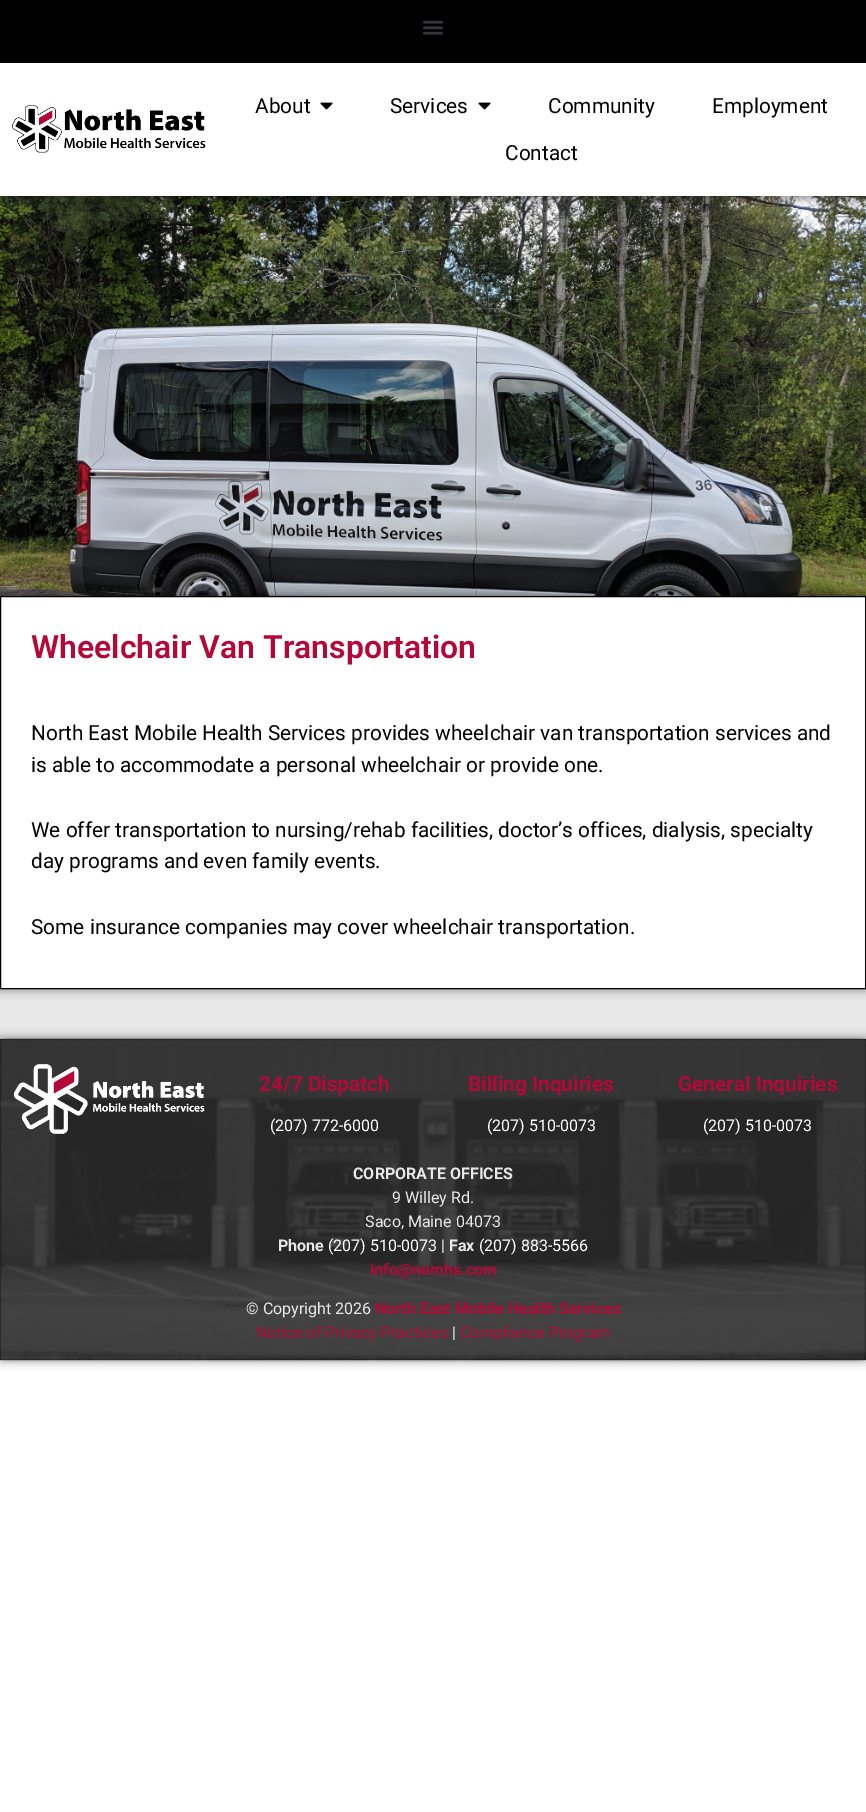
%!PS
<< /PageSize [866 1812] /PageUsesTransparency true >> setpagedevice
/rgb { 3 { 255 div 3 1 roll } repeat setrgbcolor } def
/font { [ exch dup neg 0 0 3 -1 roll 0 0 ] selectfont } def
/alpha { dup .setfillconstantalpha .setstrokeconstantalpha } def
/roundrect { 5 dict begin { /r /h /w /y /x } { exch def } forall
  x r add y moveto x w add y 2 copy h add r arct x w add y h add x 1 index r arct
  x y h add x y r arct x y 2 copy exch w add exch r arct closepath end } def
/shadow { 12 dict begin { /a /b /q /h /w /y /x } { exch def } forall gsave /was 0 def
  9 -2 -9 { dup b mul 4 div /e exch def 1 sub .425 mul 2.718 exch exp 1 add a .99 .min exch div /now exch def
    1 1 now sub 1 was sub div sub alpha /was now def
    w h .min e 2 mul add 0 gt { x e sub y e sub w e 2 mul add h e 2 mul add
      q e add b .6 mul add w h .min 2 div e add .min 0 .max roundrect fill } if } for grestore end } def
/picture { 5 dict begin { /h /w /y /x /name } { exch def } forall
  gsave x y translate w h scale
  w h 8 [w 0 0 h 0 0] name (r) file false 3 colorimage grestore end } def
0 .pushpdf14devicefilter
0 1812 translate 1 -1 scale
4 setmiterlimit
255 255 255 rgb
0 0 866 1812 rectfill
0 0 0 rgb
0 0 866 63 rectfill
(img/1.rgb) 423 20 20 15 picture
(img/4.rgb) 0 196 866 400 picture
gsave
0 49 moveto 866 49 lineto 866 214 lineto 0 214 lineto closepath 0 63 moveto 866 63 lineto 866 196 lineto 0 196 lineto closepath eoclip newpath
0 65 866 133 0 5 0.5 shadow
grestore
(img/2.rgb) 11 105 195 48 picture
(img/3.rgb) 320 102 13 8 picture
(img/3.rgb) 478 102 13 8 picture
232 232 232 rgb
0 989 866 50 rectfill
0 0 0 rgb
0 596 866 393 0 5 0.5 shadow
255 255 255 rgb
0.5 596.5 moveto 865.5 596.5 lineto 865.5 988.5 lineto 0.5 988.5 lineto closepath gsave fill grestore
0 0 0 rgb
stroke
0 1039 866 321 0 5 0.5 shadow
0 1039 866 321 rectfill
47 47 47 rgb
0 1039 866 321 0 1 0.5 shadow
(img/5.rgb) 0 1037 866 325 picture
(img/6.rgb) 14 1064 191 70 picture
/Roboto-Regular 20.8 font
0 0 0 rgb
[
  [(About) 255 113]
  [(Services) 390 113]
  [(Community) 548 113]
  [(Employment) 712 113]
  [(Contact) 505 160]
] { aload pop moveto show } forall
/Roboto-SemiBold 32 font
180 8 56 rgb
31 658 moveto (Wheelchair Van Transportation) show
/Roboto-Regular 20.8 font
0 0 0 rgb
[
  [(North East Mobile Health Services provides wheelchair van transportation services and) 31 740]
  [(is able to accommodate a personal wheelchair or provide one.) 31 772]
  [(We offer transportation to nursing/rehab facilities, doctor’s offices, dialysis, specialty) 31 837]
  [(day programs and even family events.) 31 868]
  [(Some insurance companies may cover wheelchair transportation.) 31 934]
] { aload pop moveto show } forall
/Roboto-Bold 20.8 font
180 8 56 rgb
259 1091 moveto (24/7 Dispatch) show
/Roboto-Regular 16 font
255 255 255 rgb
270 1131 moveto (\(207\) 772-6000) show
/Roboto-Bold 20.8 font
180 8 56 rgb
468 1091 moveto (Billing Inquiries) show
/Roboto-Regular 16 font
255 255 255 rgb
487 1131 moveto (\(207\) 510-0073) show
/Roboto-Bold 20.8 font
180 8 56 rgb
678 1091 moveto (General Inquiries) show
/Roboto-Regular 16 font
255 255 255 rgb
703 1131 moveto (\(207\) 510-0073) show
/Roboto-Bold 16 font
232 232 232 rgb
353 1179 moveto (CORPORATE OFFICES) show
/Roboto-Regular 16 font
392 1203 moveto (9 Willey Rd.) show
365 1227 moveto (Saco, Maine 04073) show
/Roboto-Bold 16 font
278 1251 moveto (Phone) show
/Roboto-Regular 16 font
255 255 255 rgb
328 1251 moveto (\(207\) 510-0073) show
232 232 232 rgb
441 1251 moveto (|) show
/Roboto-Bold 16 font
449 1251 moveto (Fax) show
/Roboto-Regular 16 font
255 255 255 rgb
479 1251 moveto (\(207\) 883-5566) show
/Roboto-Bold 16 font
180 8 56 rgb
370 1275 moveto (info@nemhs.com) show
/Roboto-Regular 16 font
232 232 232 rgb
246 1314 moveto (© Copyright 2026) show
/Roboto-Bold 16 font
180 8 56 rgb
375 1314 moveto (North East Mobile Health Services) show
/Roboto-Regular 16 font
256 1338 moveto (Notice of Privacy Practices) show
232 232 232 rgb
452 1338 moveto (|) show
180 8 56 rgb
460 1338 moveto (Compliance Program) show
.poppdf14devicefilter showpage
